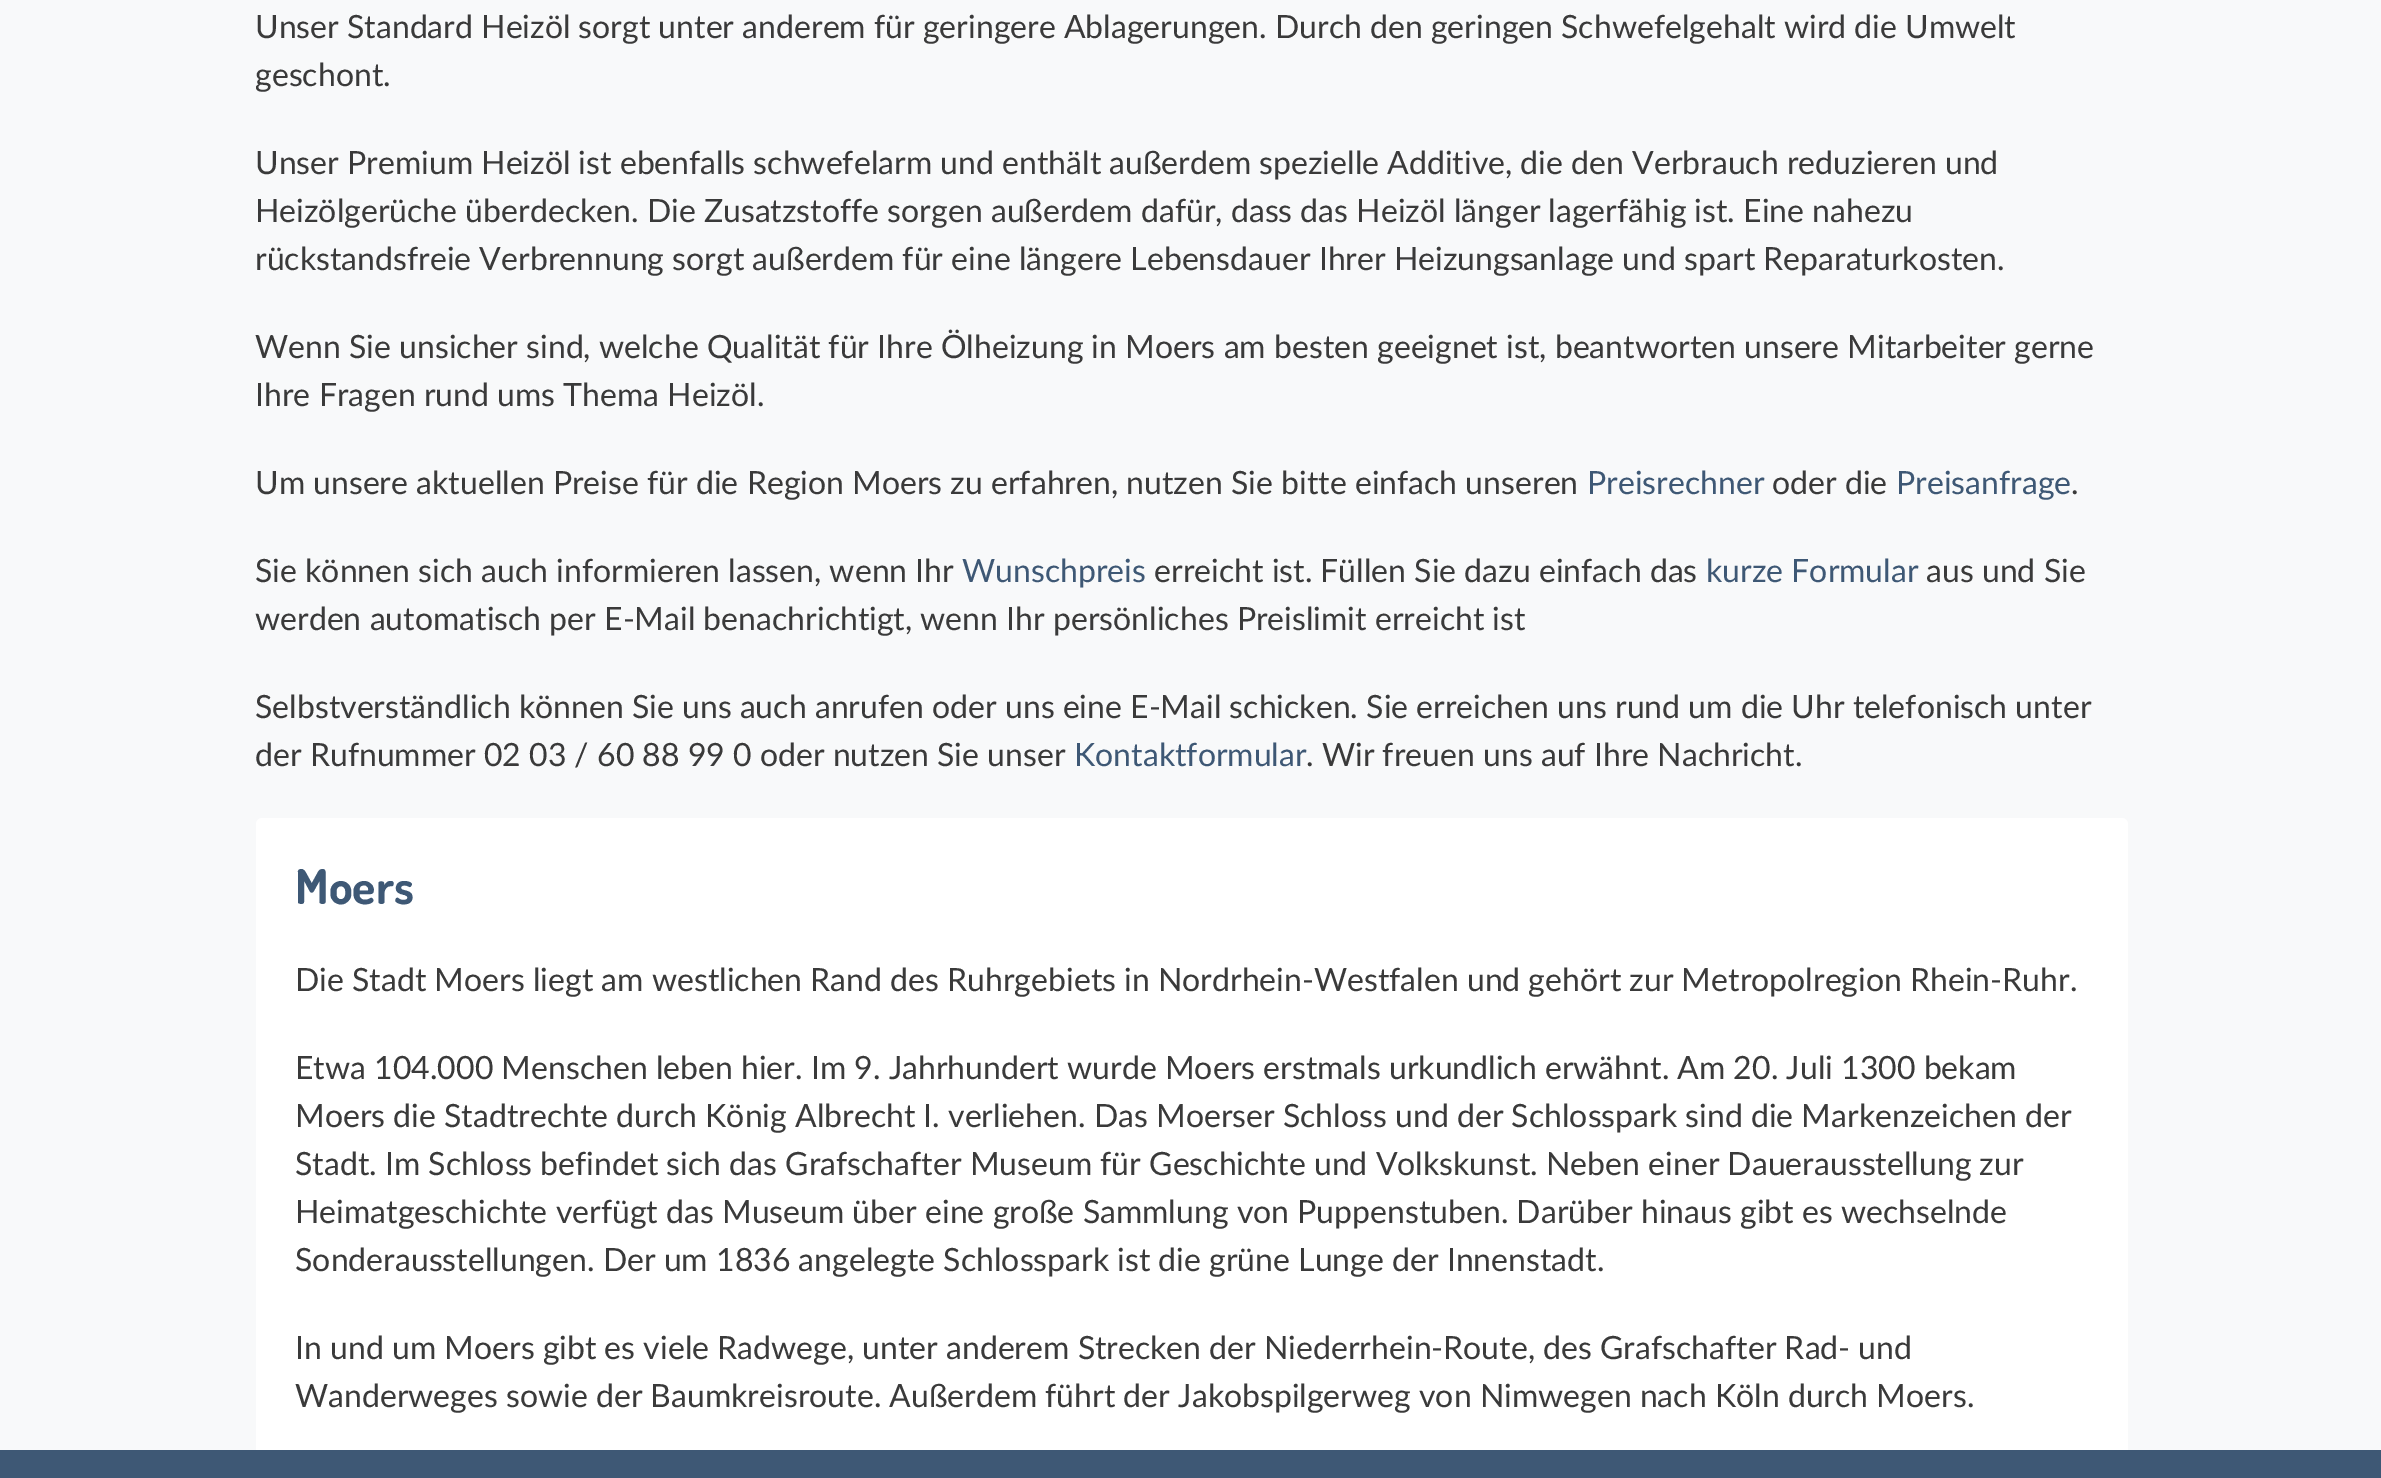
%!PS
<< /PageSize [2381 1478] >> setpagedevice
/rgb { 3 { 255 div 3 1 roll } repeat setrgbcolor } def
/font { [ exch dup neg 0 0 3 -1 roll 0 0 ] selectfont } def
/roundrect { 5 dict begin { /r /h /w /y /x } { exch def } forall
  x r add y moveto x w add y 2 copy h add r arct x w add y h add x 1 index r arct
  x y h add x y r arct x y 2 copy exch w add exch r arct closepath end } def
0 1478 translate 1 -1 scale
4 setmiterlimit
248 249 250 rgb
0 0 2381 1478 rectfill
255 255 255 rgb
256 818 1872 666 6 roundrect fill
62 88 117 rgb
0 1450 2381 28 rectfill
/Lato-Regular 32 font
58 58 58 rgb
[
  [(Unser Standard Heizöl sorgt unter anderem für geringere Ablagerungen. Durch den geringen Schwefelgehalt wird die Umwelt) 255 38]
  [(geschont.) 255 86]
  [(Unser Premium Heizöl ist ebenfalls schwefelarm und enthält außerdem spezielle Additive, die den Verbrauch reduzieren und) 255 174]
  [(Heizölgerüche überdecken. Die Zusatzstoffe sorgen außerdem dafür, dass das Heizöl länger lagerfähig ist. Eine nahezu) 255 222]
  [(rückstandsfreie Verbrennung sorgt außerdem für eine längere Lebensdauer Ihrer Heizungsanlage und spart Reparaturkosten.) 255 270]
  [(Wenn Sie unsicher sind, welche Qualität für Ihre Ölheizung in Moers am besten geeignet ist, beantworten unsere Mitarbeiter gerne) 255 358]
  [(Ihre Fragen rund ums Thema Heizöl.) 255 406]
  [(Um unsere aktuellen Preise für die Region Moers zu erfahren, nutzen Sie bitte einfach unseren) 255 494]
] { aload pop moveto show } forall
62 88 117 rgb
1587 494 moveto (Preisrechner) show
58 58 58 rgb
1772 494 moveto (oder die) show
62 88 117 rgb
1896 494 moveto (Preisanfrage) show
58 58 58 rgb
2071 494 moveto (.) show
255 582 moveto (Sie können sich auch informieren lassen, wenn Ihr) show
62 88 117 rgb
962 582 moveto (Wunschpreis) show
58 58 58 rgb
1154 582 moveto (erreicht ist. Füllen Sie dazu einfach das) show
62 88 117 rgb
1706 582 moveto (kurze Formular) show
58 58 58 rgb
[
  [(aus und Sie) 1926 582]
  [(werden automatisch per E-Mail benachrichtigt, wenn Ihr persönliches Preislimit erreicht ist) 255 630]
  [(Selbstverständlich können Sie uns auch anrufen oder uns eine E-Mail schicken. Sie erreichen uns rund um die Uhr telefonisch unter) 255 718]
  [(der Rufnummer 02 03 / 60 88 99 0 oder nutzen Sie unser) 255 766]
] { aload pop moveto show } forall
62 88 117 rgb
1074 766 moveto (Kontaktformular) show
58 58 58 rgb
1306 766 moveto (. Wir freuen uns auf Ihre Nachricht.) show
/Dosis-Bold 48 font
62 88 117 rgb
295 904 moveto (Moers) show
/Lato-Regular 32 font
58 58 58 rgb
[
  [(Die Stadt Moers liegt am westlichen Rand des Ruhrgebiets in Nordrhein-Westfalen und gehört zur Metropolregion Rhein-Ruhr.) 295 991]
  [(Etwa 104.000 Menschen leben hier. Im 9. Jahrhundert wurde Moers erstmals urkundlich erwähnt. Am 20. Juli 1300 bekam) 295 1079]
  [(Moers die Stadtrechte durch König Albrecht I. verliehen. Das Moerser Schloss und der Schlosspark sind die Markenzeichen der) 295 1127]
  [(Stadt. Im Schloss befindet sich das Grafschafter Museum für Geschichte und Volkskunst. Neben einer Dauerausstellung zur) 295 1175]
  [(Heimatgeschichte verfügt das Museum über eine große Sammlung von Puppenstuben. Darüber hinaus gibt es wechselnde) 295 1223]
  [(Sonderausstellungen. Der um 1836 angelegte Schlosspark ist die grüne Lunge der Innenstadt.) 295 1271]
  [(In und um Moers gibt es viele Radwege, unter anderem Strecken der Niederrhein-Route, des Grafschafter Rad- und) 295 1359]
  [(Wanderweges sowie der Baumkreisroute. Außerdem führt der Jakobspilgerweg von Nimwegen nach Köln durch Moers.) 295 1407]
] { aload pop moveto show } forall
showpage
